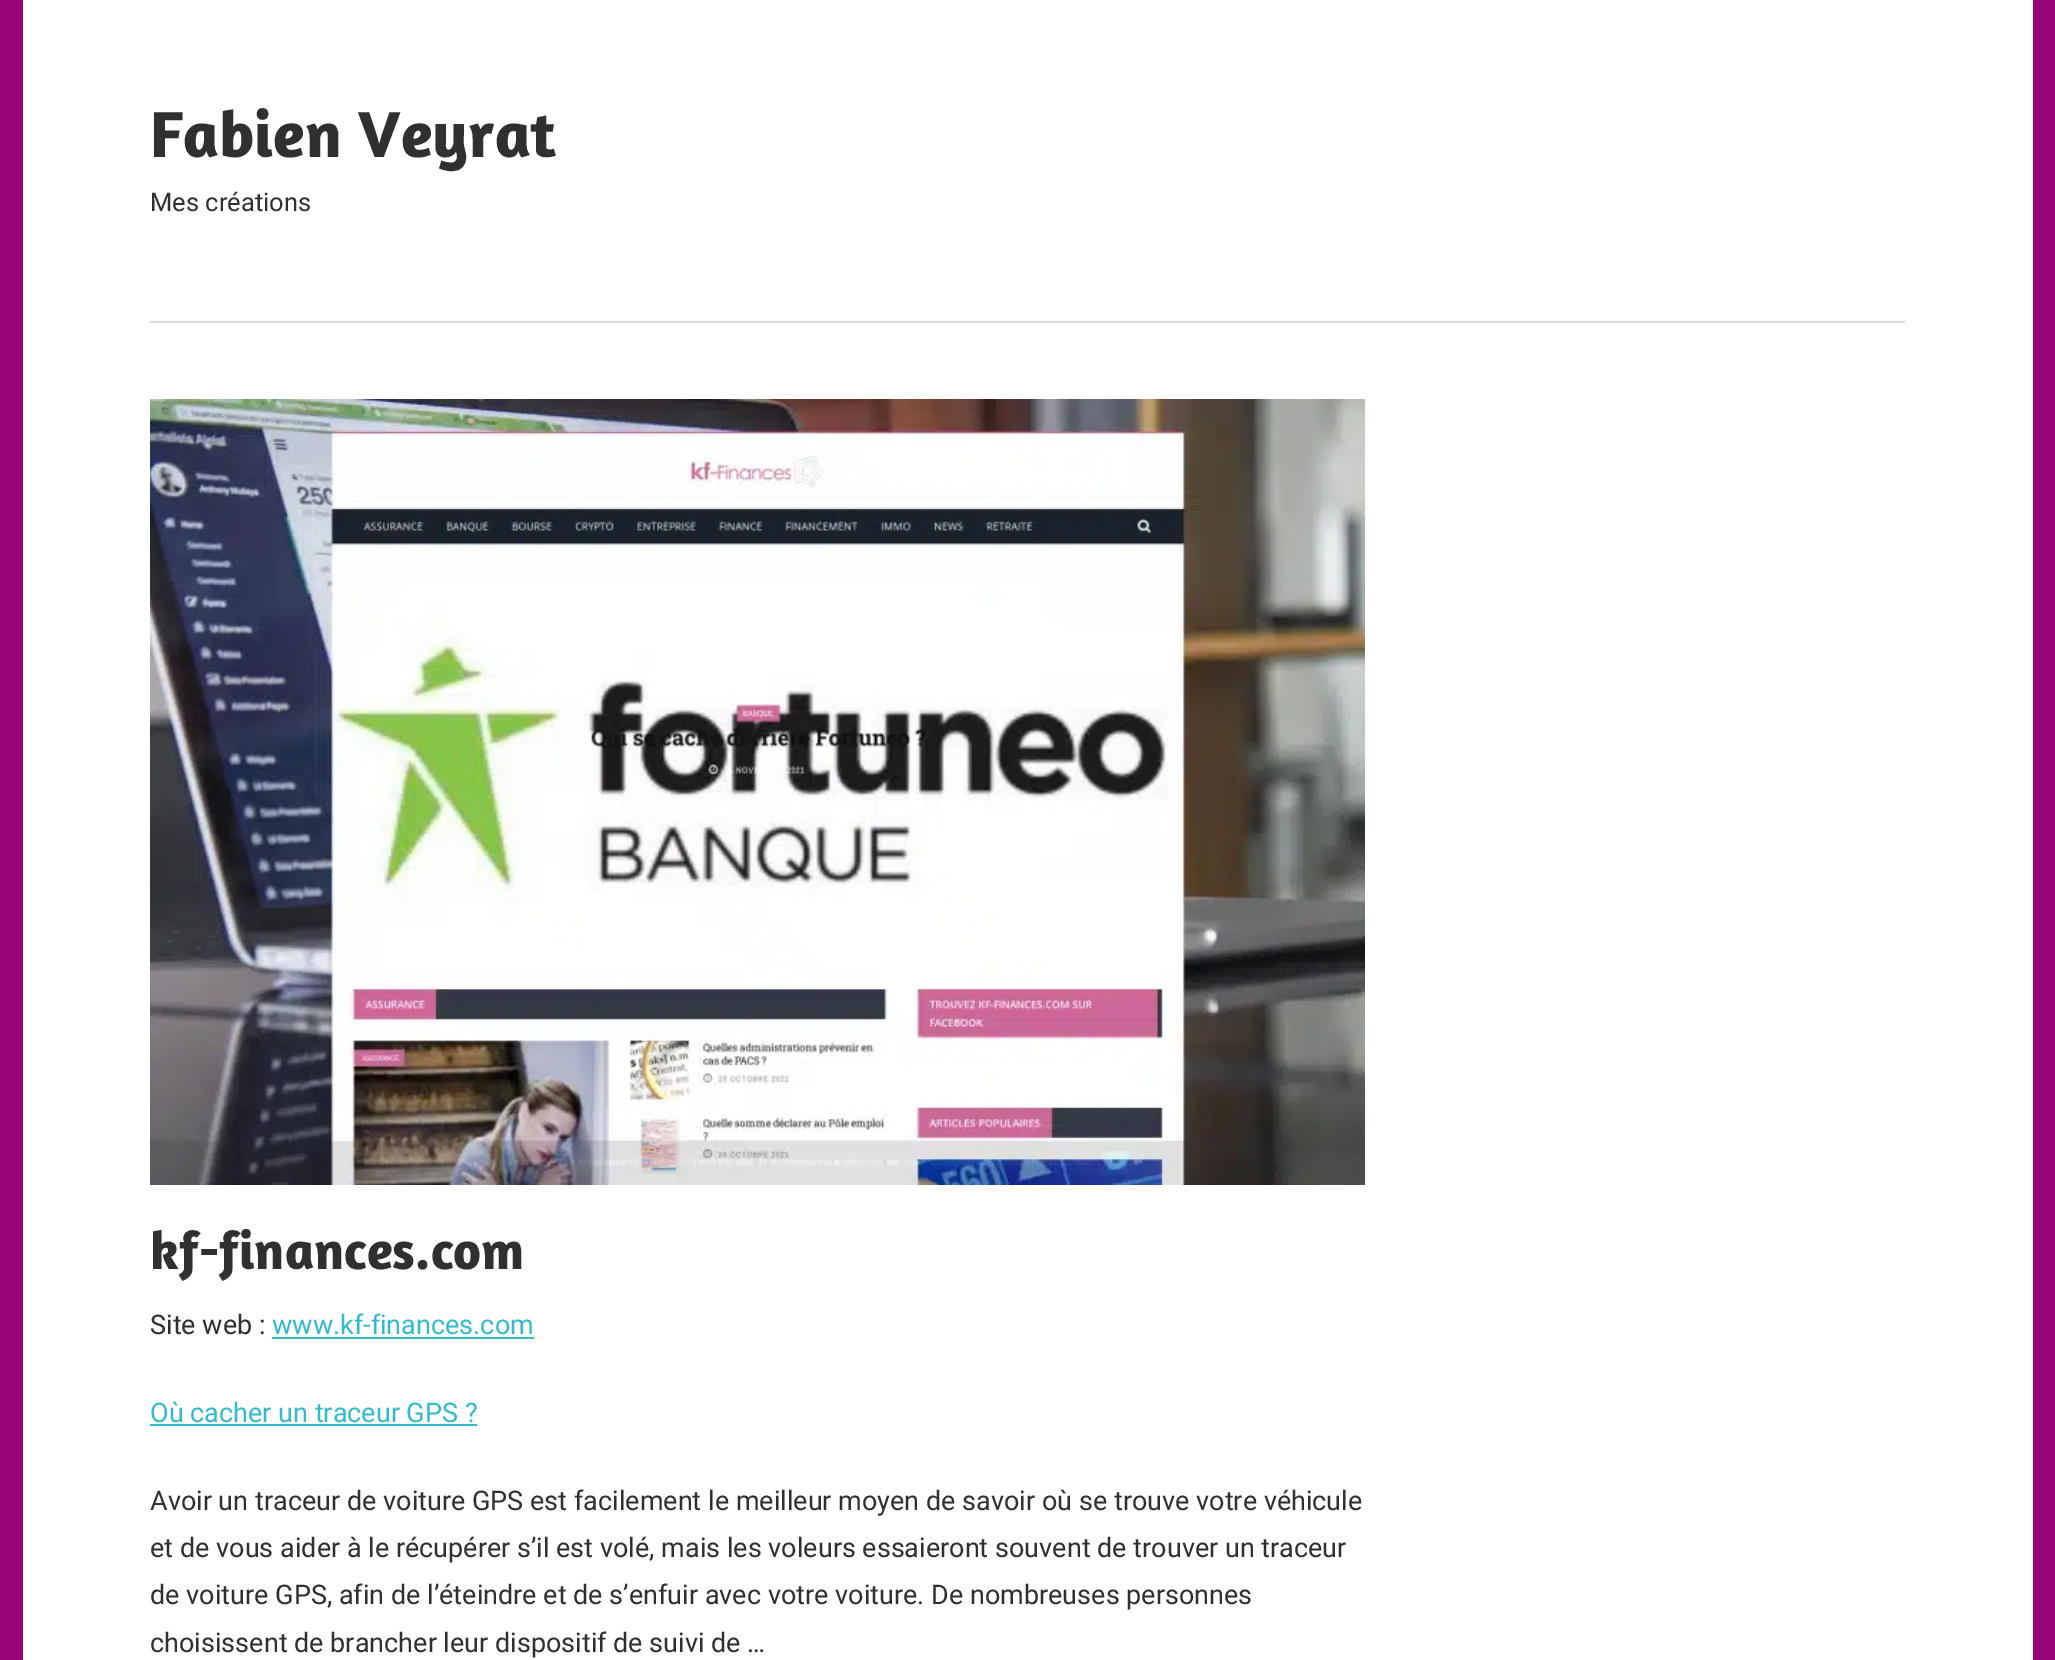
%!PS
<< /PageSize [2055 1660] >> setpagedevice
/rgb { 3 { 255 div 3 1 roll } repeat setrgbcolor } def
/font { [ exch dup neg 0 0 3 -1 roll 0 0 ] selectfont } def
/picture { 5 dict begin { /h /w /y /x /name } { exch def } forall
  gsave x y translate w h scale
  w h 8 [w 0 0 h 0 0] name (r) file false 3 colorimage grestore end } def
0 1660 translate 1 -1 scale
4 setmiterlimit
151 5 121 rgb
0 0 2055 1660 rectfill
255 255 255 rgb
23 0 2010 1660 rectfill
217 217 217 rgb
150 321 1755 2 rectfill
(img/1.rgb) 150 399 1215 786 picture
51 187 204 rgb
272 1337 262 2 rectfill
150 1424 327 2 rectfill
/Amaranth-Bold 66 font
48 48 48 rgb
150 157 moveto (Fabien Veyrat) show
/Roboto-Regular 25.5 font
150 211 moveto (Mes créations) show
/Amaranth-Bold 54 font
150 1269 moveto (kf-finances.com) show
/Roboto-Regular 27 font
150 1334 moveto (Site web :) show
51 187 204 rgb
272 1334 moveto (www.kf-finances.com) show
150 1422 moveto (Où cacher un traceur GPS ?) show
48 48 48 rgb
[
  [(Avoir un traceur de voiture GPS est facilement le meilleur moyen de savoir où se trouve votre véhicule) 150 1510]
  [(et de vous aider à le récupérer s’il est volé, mais les voleurs essaieront souvent de trouver un traceur) 150 1557]
  [(de voiture GPS, afin de l’éteindre et de s’enfuir avec votre voiture. De nombreuses personnes) 150 1604]
  [(choisissent de brancher leur dispositif de suivi de …) 150 1652]
] { aload pop moveto show } forall
showpage
